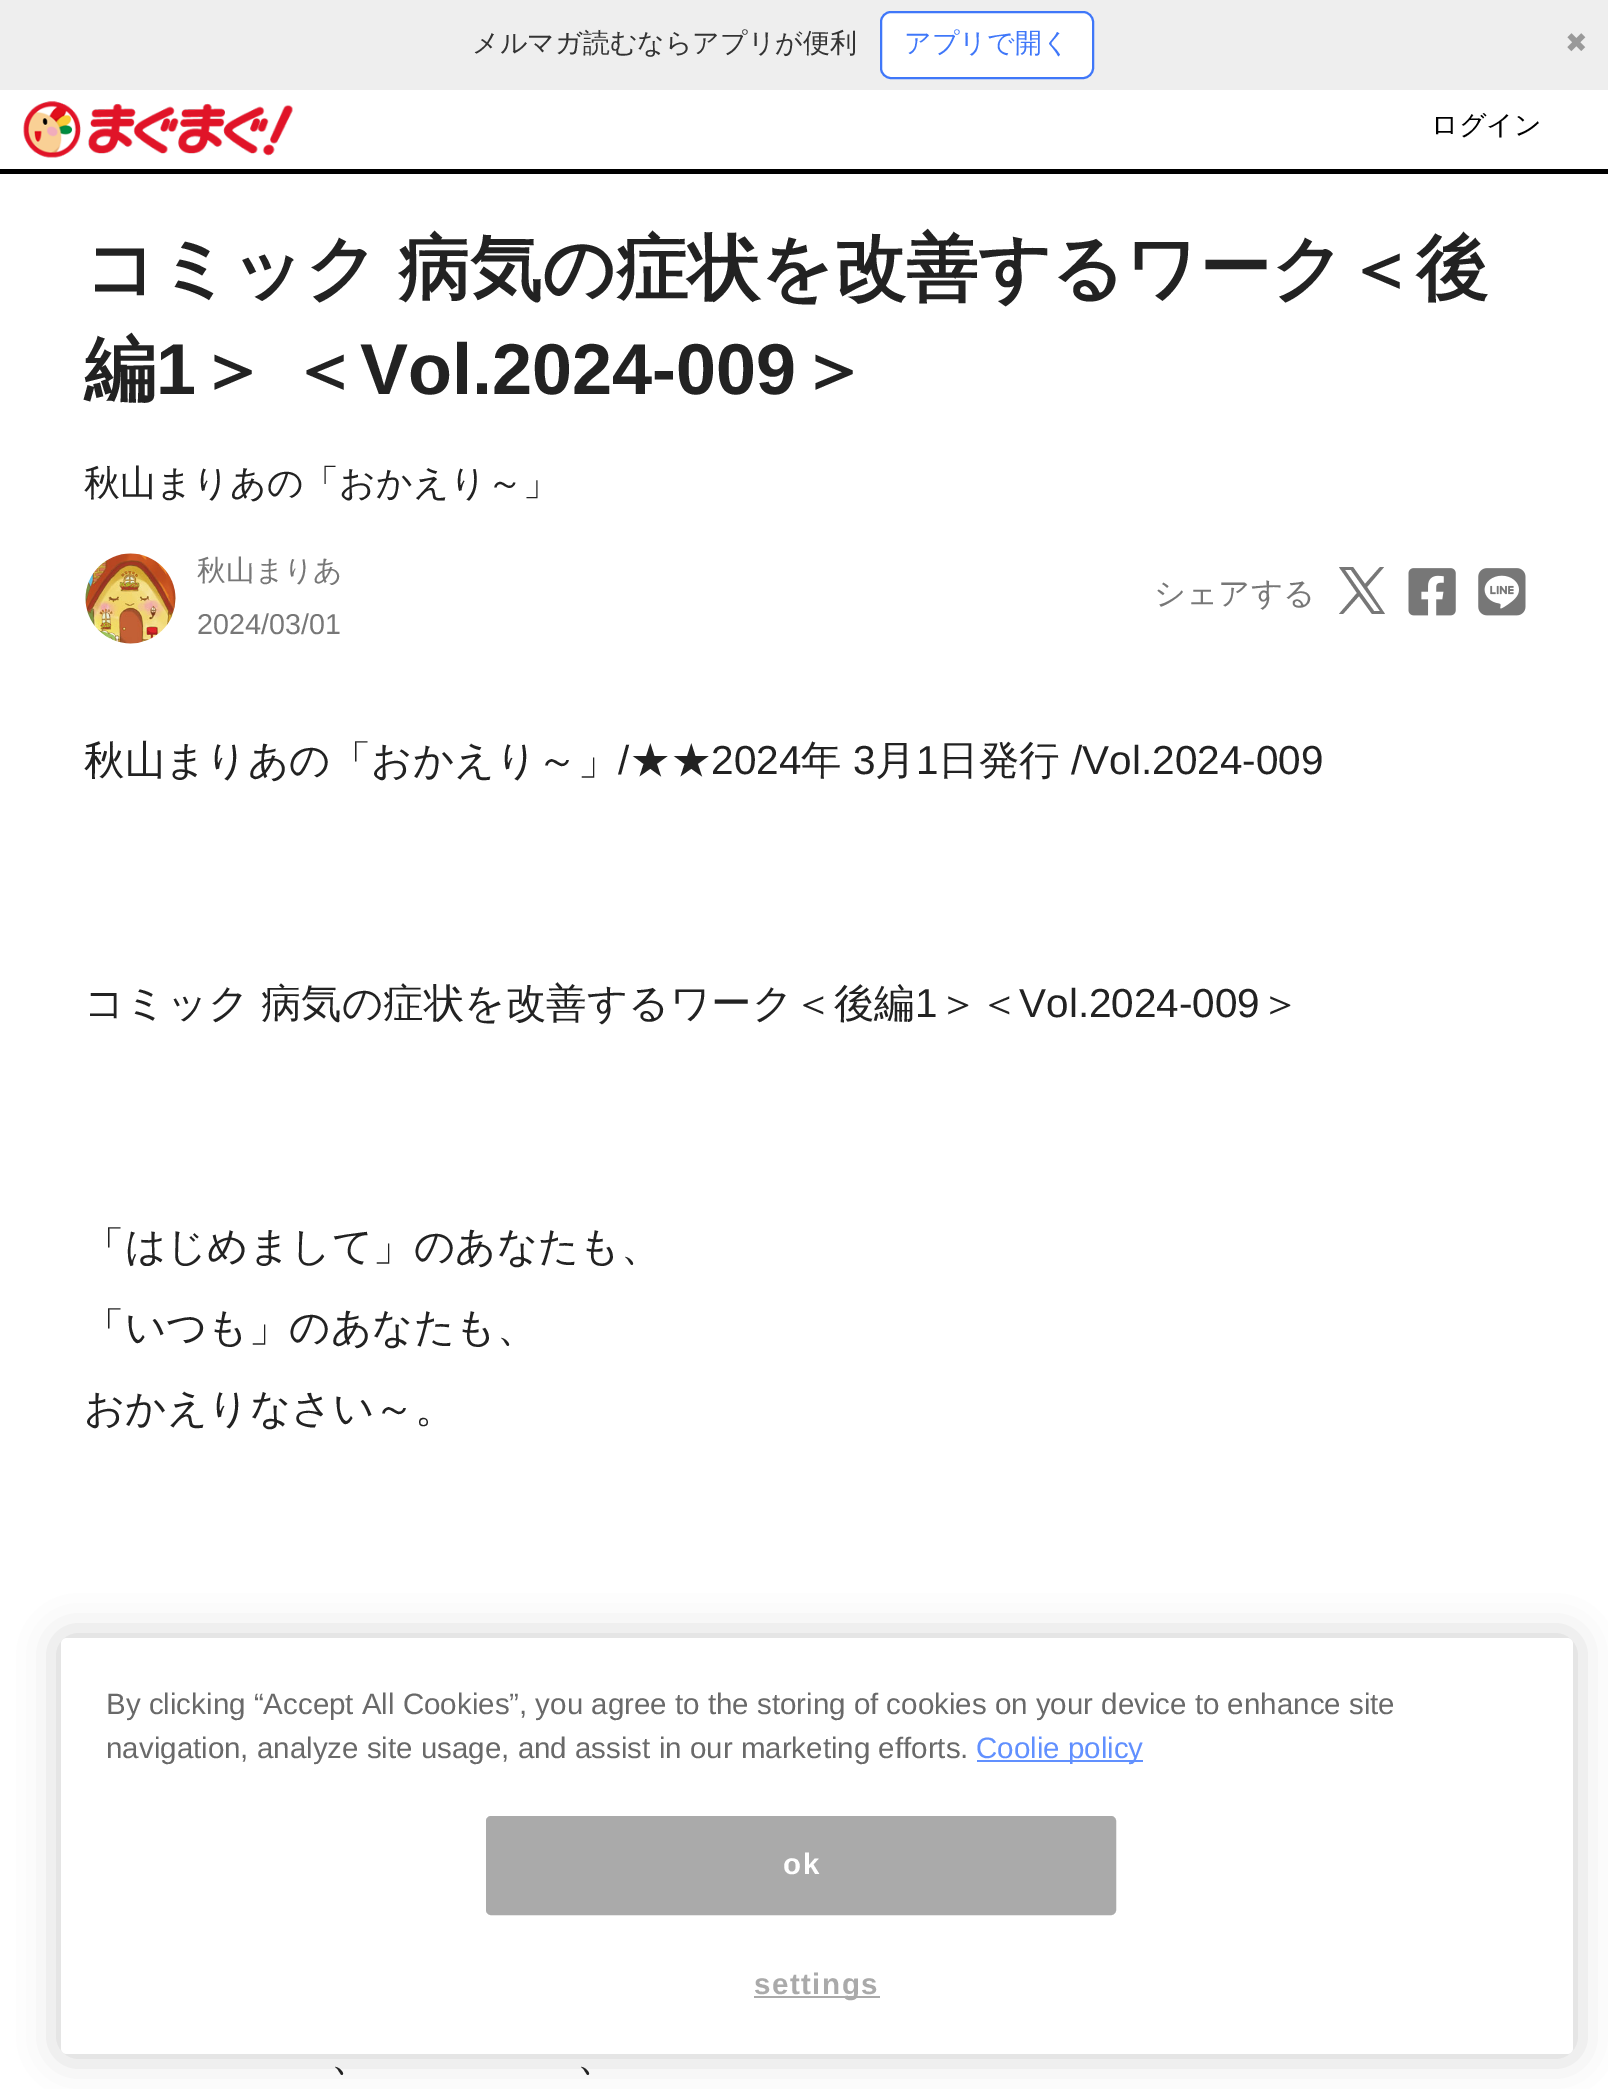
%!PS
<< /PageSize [1608 2089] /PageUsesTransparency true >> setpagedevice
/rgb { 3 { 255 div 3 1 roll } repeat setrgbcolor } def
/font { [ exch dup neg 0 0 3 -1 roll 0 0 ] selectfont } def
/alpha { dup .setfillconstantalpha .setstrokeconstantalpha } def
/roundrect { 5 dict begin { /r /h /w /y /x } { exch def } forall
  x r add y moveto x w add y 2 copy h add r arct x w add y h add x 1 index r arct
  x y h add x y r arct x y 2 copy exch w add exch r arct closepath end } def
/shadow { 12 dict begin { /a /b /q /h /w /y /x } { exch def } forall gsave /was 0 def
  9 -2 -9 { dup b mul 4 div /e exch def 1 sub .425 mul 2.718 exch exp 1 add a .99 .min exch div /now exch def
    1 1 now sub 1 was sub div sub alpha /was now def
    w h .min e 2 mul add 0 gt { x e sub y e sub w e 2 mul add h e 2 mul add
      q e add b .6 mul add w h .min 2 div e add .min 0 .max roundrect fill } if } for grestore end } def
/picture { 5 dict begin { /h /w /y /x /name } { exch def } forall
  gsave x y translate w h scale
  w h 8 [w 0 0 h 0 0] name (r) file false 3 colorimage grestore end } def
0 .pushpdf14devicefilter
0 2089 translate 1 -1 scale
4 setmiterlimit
255 255 255 rgb
0 0 1608 2089 rectfill
238 238 238 rgb
0 0 1608 90 rectfill
255 255 255 rgb
881 12 212 66 10 roundrect gsave fill grestore
63 119 249 rgb
2 setlinewidth
stroke
0 0 0 rgb
0 169 1608 5 rectfill
(img/1.rgb) 23 101 270 57 picture
(img/2.rgb) 85 553 91 91 picture
119 119 119 rgb
1367 587 moveto 1384 567 lineto 1380 567 lineto 1365 584 lineto 1353 567 lineto 1339 567 lineto 1357 593 lineto 1339 614 lineto 1343 614 lineto 1359 596 lineto 1372 614 lineto 1385 614 lineto closepath 1361 593 moveto 1345 570 lineto 1351 570 lineto 1380 611 lineto 1374 611 lineto closepath fill
(img/3.rgb) 1408 568 48 48 picture
(img/4.rgb) 1478 568 48 48 picture
0 0 0 rgb
61 1638 1512 416 6 20 0.2 shadow
255 255 255 rgb
61 1638 1512 416 6 roundrect fill
97 144 255 rgb
977 1760 166 2 rectfill
170 170 170 rgb
487 1817 628 97 4 roundrect gsave fill grestore
stroke
754 1996 126 2 rectfill
/WenQuanYiZenHei-Medium 27 font
51 51 51 rgb
472 52 moveto (メルマガ読むならアプリが便利) show
63 119 249 rgb
904 52 moveto (アプリで開く) show
/DejaVuSans-Regular 27 font
153 153 153 rgb
1565 52 moveto (✖) show
/WenQuanYiZenHei-Medium 27 font
0 0 0 rgb
1431 134 moveto (ログイン) show
/WenQuanYiZenHei-Bold 72 font
34 34 34 rgb
84 293 moveto -2 0 32 (コミック 病気の症状を改善するワーク＜後) widthshow
84 394 moveto (編) show
/LiberationSans-Bold 72 font
156 394 moveto (1) show
/WenQuanYiZenHei-Bold 72 font
196 394 moveto -2 0 32 (＞ ＜) widthshow
/LiberationSans-Bold 72 font
360 394 moveto (Vol.2024-009) show
/WenQuanYiZenHei-Bold 72 font
797 394 moveto (＞) show
/WenQuanYiZenHei-Medium 36 font
84 495 moveto (秋山まりあの「おかえり～」) show
/WenQuanYiZenHei-Medium 28.75 font
119 119 119 rgb
197 580 moveto (秋山まりあ) show
/LiberationSans-Regular 28.75 font
197 634 moveto (2024/03/01) show
/WenQuanYiZenHei-Medium 31.5 font
1154 604 moveto (シェアする) show
/WenQuanYiZenHei-Medium 40.5 font
34 34 34 rgb
84 774 moveto (秋山まりあの「おかえり～」) show
/LiberationSans-Regular 40.5 font
618 774 moveto (/) show
/WenQuanYiZenHei-Medium 40.5 font
630 774 moveto (★★) show
/LiberationSans-Regular 40.5 font
711 774 moveto (2024) show
/WenQuanYiZenHei-Medium 40.5 font
801 774 moveto (年) show
/LiberationSans-Regular 40.5 font
853 774 moveto (3) show
/WenQuanYiZenHei-Medium 40.5 font
875 774 moveto (月) show
/LiberationSans-Regular 40.5 font
916 774 moveto (1) show
/WenQuanYiZenHei-Medium 40.5 font
938 774 moveto (日発行) show
/LiberationSans-Regular 40.5 font
1071 774 moveto (/Vol.2024-009) show
/WenQuanYiZenHei-Medium 40.5 font
84 1017 moveto -1 0 32 (コミック 病気の症状を改善するワーク＜後編) widthshow
/LiberationSans-Regular 40.5 font
915 1017 moveto (1) show
/WenQuanYiZenHei-Medium 40.5 font
938 1017 moveto (＞＜) show
/LiberationSans-Regular 40.5 font
1019 1017 moveto (Vol.2024-009) show
/WenQuanYiZenHei-Medium 40.5 font
[
  [(＞) 1260 1017]
  [(「はじめまして」のあなたも、) 84 1260]
  [(「いつも」のあなたも、) 84 1341]
  [(おかえりなさい～。) 84 1422]
  [(、) 331 2070]
  [(、) 577 2070]
] { aload pop moveto show } forall
/LiberationSans-Regular 29.5 font
105 105 105 rgb
106 1714 moveto (By clicking “Accept All Cookies”, you agree to the storing of cookies on your device to enhance site) show
106 1758 moveto (navigation, analyze site usage, and assist in our marketing efforts.) show
97 144 255 rgb
976 1758 moveto (Coolie policy) show
/LiberationSans-Bold 29.5 font
255 255 255 rgb
783 1874 moveto 1.5 0 (ok) ashow
170 170 170 rgb
754 1994 moveto 1.5 0 (settings) ashow
.poppdf14devicefilter showpage
